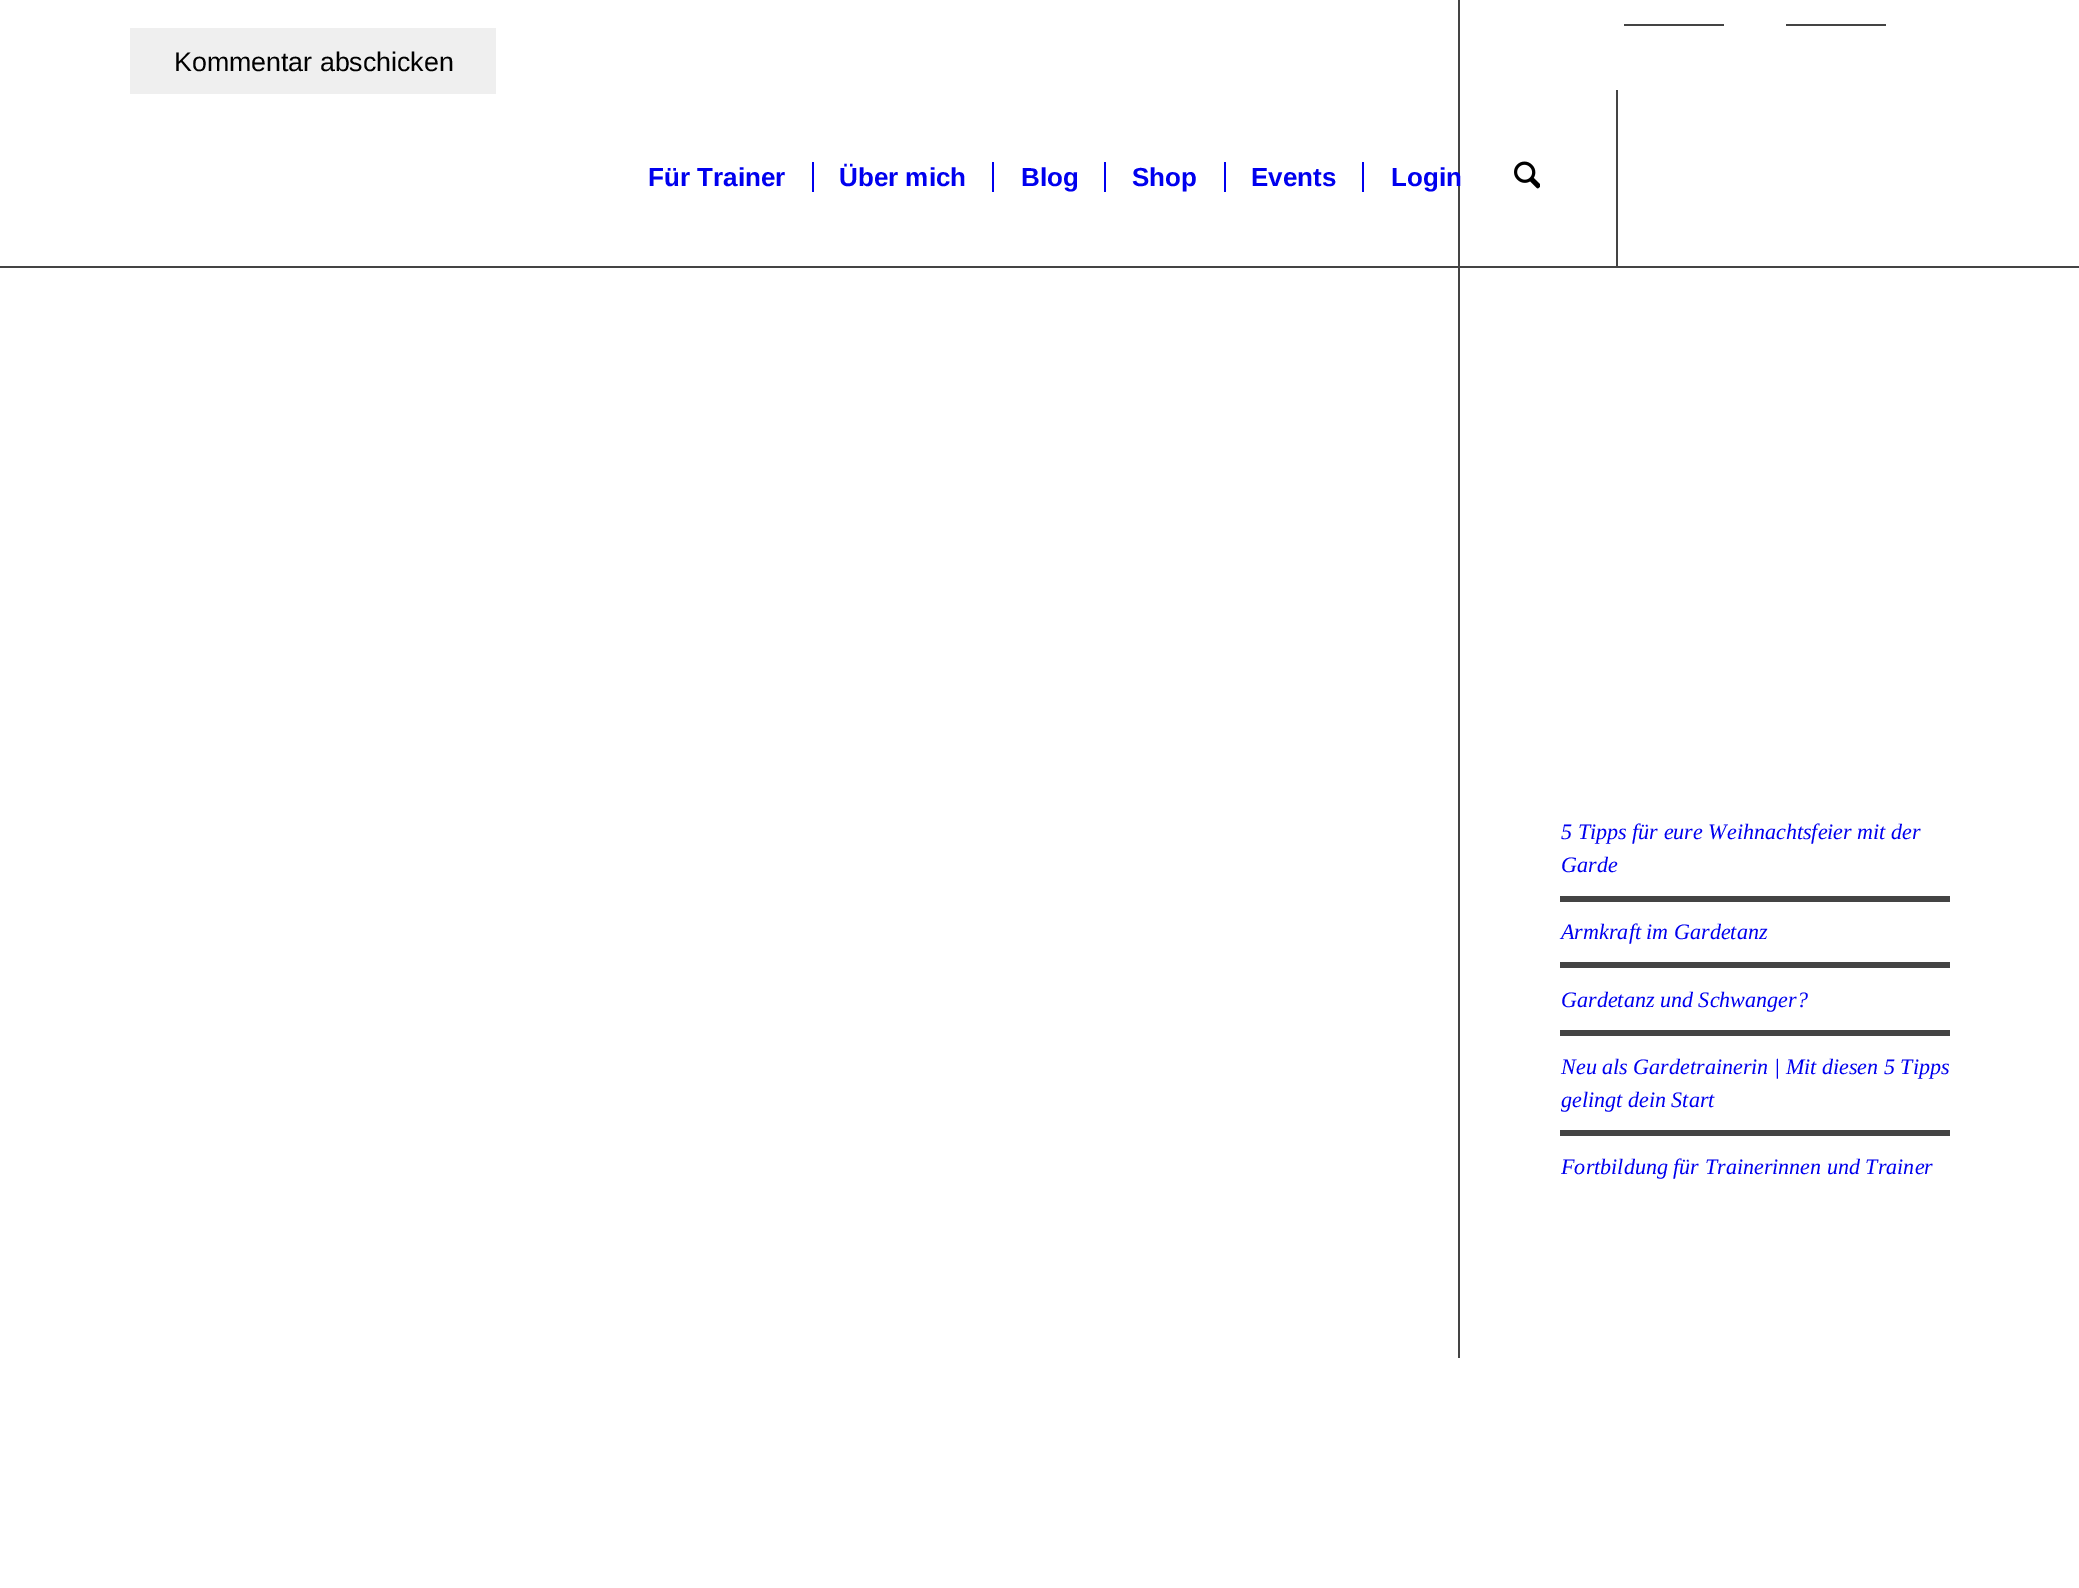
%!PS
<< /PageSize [2079 1588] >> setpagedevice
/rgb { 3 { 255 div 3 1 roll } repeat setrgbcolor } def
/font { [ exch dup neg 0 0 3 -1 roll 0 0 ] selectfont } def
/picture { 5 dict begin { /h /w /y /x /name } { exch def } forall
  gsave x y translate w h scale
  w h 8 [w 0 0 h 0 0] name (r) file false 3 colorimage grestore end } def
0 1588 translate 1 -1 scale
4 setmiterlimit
255 255 255 rgb
0 0 2079 1588 rectfill
[
  [130 28 366 66 239 239 239]
  [1458 0 2 1358 68 68 68]
  [1624 24 100 2 68 68 68]
  [1786 24 100 2 68 68 68]
  [1560 896 390 6 68 68 68]
  [1560 962 390 6 68 68 68]
  [1560 1030 390 6 68 68 68]
  [1560 1130 390 6 68 68 68]
  [0 266 2079 2 68 68 68]
  [1616 90 2 176 68 68 68]
  [812 162 2 30 0 0 238]
  [992 162 2 30 0 0 238]
  [1104 162 2 30 0 0 238]
  [1224 162 2 30 0 0 238]
  [1362 162 2 30 0 0 238]
] { aload pop rgb rectfill } forall
(img/1.rgb) 1514 161 26 28 picture
/LiberationSans-Regular 26.75 font
0 0 0 rgb
174 71 moveto (Kommentar abschicken) show
/LiberationSerif-Italic 22.1 font
0 0 238 rgb
[
  [(5 Tipps für eure Weihnachtsfeier mit der) 1561 839]
  [(Garde) 1561 872]
  [(Armkraft im Gardetanz) 1561 939]
  [(Gardetanz und Schwanger?) 1561 1007]
  [(Neu als Gardetrainerin | Mit diesen 5 Tipps) 1561 1074]
  [(gelingt dein Start) 1561 1107]
  [(Fortbildung für Trainerinnen und Trainer) 1561 1174]
] { aload pop moveto show } forall
/LiberationSans-Bold 26 font
[
  [(Für Trainer) 648 186]
  [(Über mich) 839 186]
  [(Blog) 1021 186]
  [(Shop) 1132 186]
  [(Events) 1251 186]
  [(Login) 1391 186]
] { aload pop moveto show } forall
showpage
